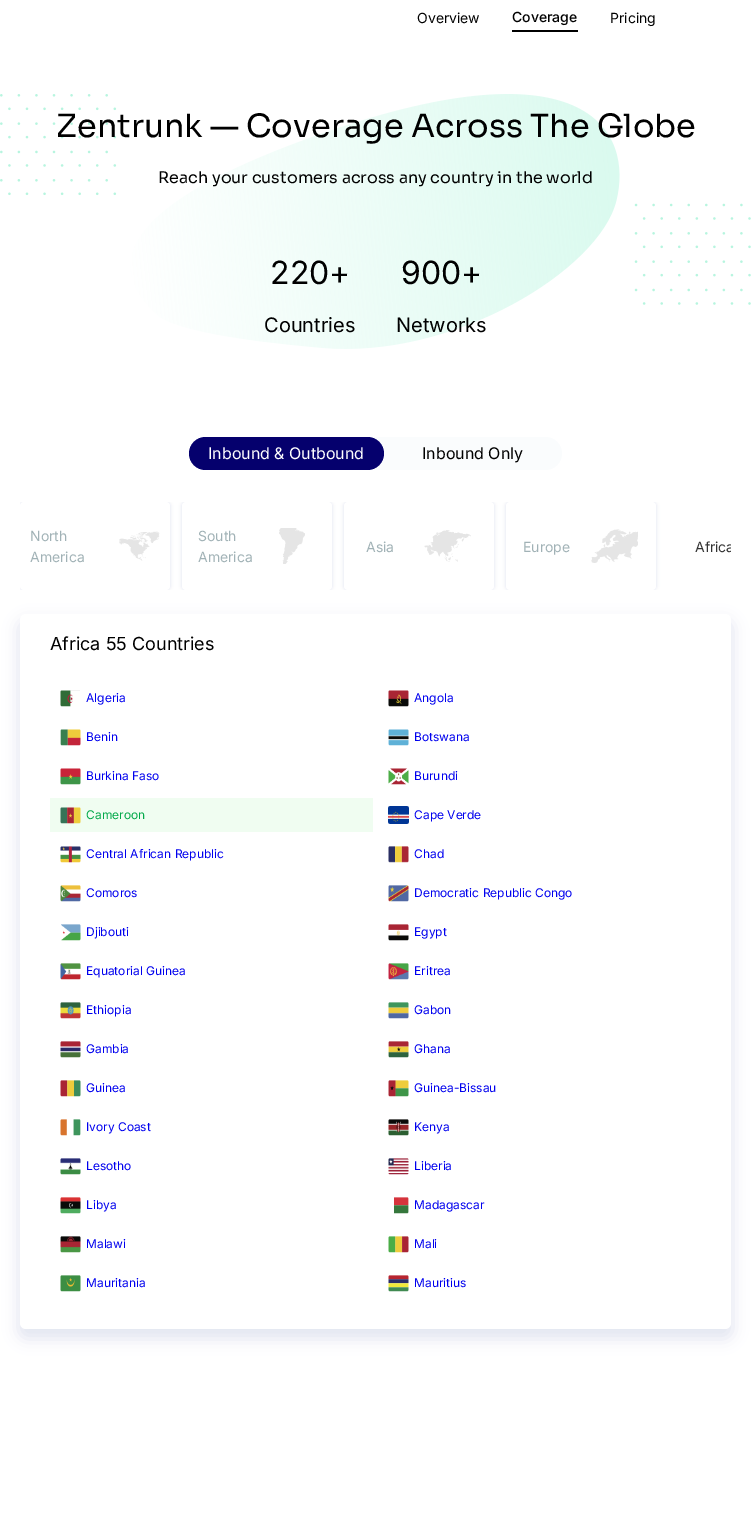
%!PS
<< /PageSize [751 1518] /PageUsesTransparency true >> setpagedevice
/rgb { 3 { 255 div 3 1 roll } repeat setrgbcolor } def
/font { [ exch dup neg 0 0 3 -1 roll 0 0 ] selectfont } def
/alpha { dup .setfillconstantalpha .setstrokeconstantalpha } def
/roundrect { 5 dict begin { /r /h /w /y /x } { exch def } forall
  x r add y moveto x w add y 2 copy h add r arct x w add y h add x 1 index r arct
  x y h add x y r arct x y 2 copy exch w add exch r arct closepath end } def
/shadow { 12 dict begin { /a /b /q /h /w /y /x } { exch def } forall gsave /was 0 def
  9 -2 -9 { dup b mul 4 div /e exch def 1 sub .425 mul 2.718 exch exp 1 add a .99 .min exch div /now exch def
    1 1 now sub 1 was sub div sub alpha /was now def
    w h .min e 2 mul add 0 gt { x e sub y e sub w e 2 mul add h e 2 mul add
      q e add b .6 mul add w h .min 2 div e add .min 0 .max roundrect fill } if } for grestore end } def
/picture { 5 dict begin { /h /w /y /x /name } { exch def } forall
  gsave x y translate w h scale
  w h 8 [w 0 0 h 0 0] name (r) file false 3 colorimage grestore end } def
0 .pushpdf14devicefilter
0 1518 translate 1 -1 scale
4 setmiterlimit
255 255 255 rgb
0 0 751 1518 rectfill
0 0 0 rgb
512 30 66 2 rectfill
(img/1.rgb) 0 94 751 255 picture
250 252 253 rgb
189 437 373 33 16.5 roundrect fill
5 0 109 rgb
189 437 195 33 16.5 roundrect fill
gsave
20 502 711 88 rectclip
220 224 238 rgb
20 502 150 88 4 2 1 shadow
grestore
255 255 255 rgb
20 502 150 88 4 roundrect fill
(img/2.rgb) 119 531 41 30 picture
gsave
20 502 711 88 rectclip
220 224 238 rgb
182 502 150 88 4 2 1 shadow
grestore
182 502 150 88 4 roundrect fill
(img/3.rgb) 279 528 26 36 picture
gsave
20 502 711 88 rectclip
220 224 238 rgb
344 502 150 88 4 2 1 shadow
grestore
344 502 150 88 4 roundrect fill
(img/4.rgb) 424 530 47 32 picture
gsave
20 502 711 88 rectclip
220 224 238 rgb
506 502 150 88 4 2 1 shadow
grestore
506 502 150 88 4 roundrect fill
(img/5.rgb) 591 529 47 34 picture
220 224 238 rgb
18 620 715 719 8 7.5 0.8 shadow
255 255 255 rgb
20 614 711 715 6 roundrect fill
(img/6.rgb) 60 690 20 17 picture
(img/7.rgb) 388 690 21 17 picture
(img/8.rgb) 60 729 21 17 picture
(img/9.rgb) 388 729 21 17 picture
(img/10.rgb) 60 768 21 17 picture
(img/11.rgb) 388 768 21 17 picture
240 253 241 rgb
50 798 323 34 rectfill
(img/12.rgb) 60 807 21 17 picture
(img/13.rgb) 388 806 21 18 picture
(img/14.rgb) 60 846 21 17 picture
(img/15.rgb) 388 846 21 17 picture
(img/16.rgb) 60 885 21 17 picture
(img/17.rgb) 388 885 21 17 picture
(img/18.rgb) 61 924 20 17 picture
(img/19.rgb) 388 924 21 17 picture
(img/20.rgb) 60 963 21 17 picture
(img/21.rgb) 388 963 21 17 picture
(img/22.rgb) 60 1002 21 17 picture
(img/23.rgb) 388 1002 21 17 picture
(img/24.rgb) 60 1041 21 17 picture
(img/25.rgb) 388 1041 21 17 picture
(img/26.rgb) 60 1080 21 17 picture
(img/27.rgb) 388 1080 21 17 picture
(img/28.rgb) 60 1119 21 17 picture
(img/29.rgb) 388 1119 21 17 picture
(img/30.rgb) 60 1158 21 17 picture
(img/31.rgb) 388 1158 21 17 picture
(img/32.rgb) 60 1197 21 17 picture
(img/33.rgb) 394 1197 15 17 picture
(img/34.rgb) 60 1236 21 17 picture
(img/35.rgb) 388 1236 21 17 picture
(img/36.rgb) 60 1275 21 17 picture
(img/37.rgb) 388 1275 21 17 picture
/Inter-Regular 14 font
0 0 0 rgb
417 23 moveto (Overview) show
/Inter-Medium 14 font
512 22 moveto (Coverage) show
/Inter-Regular 14 font
610 23 moveto (Pricing) show
/Sora-Regular 32 font
56 137 moveto (Zentrunk — Coverage Across The Globe) show
/Sora-Regular 16 font
158 183 moveto (Reach your customers across any country in the world) show
/Inter-Regular 32 font
270 284 moveto (220+) show
/Inter-Regular 20 font
264 332 moveto (Countries) show
/Inter-Regular 32 font
401 284 moveto (900+) show
/Inter-Regular 20 font
396 332 moveto (Networks) show
/Inter-Regular 16 font
255 255 255 rgb
208 459 moveto (Inbound & Outbound) show
0 0 0 rgb
422 459 moveto (Inbound Only) show
/Inter-Regular 14 font
161 178 182 rgb
[
  [(North) 30 541]
  [(America) 30 562]
  [(South) 198 541]
  [(America) 198 562]
  [(Asia) 366 552]
  [(Europe) 523 552]
] { aload pop moveto show } forall
gsave
20 502 711 88 rectclip
51 51 51 rgb
695 552 moveto (Africa) show
grestore
/Inter-Regular 18 font
0 0 0 rgb
50 650 moveto (Africa 55 Countries) show
/Inter-Regular 12 font
0 0 238 rgb
[
  [(Algeria) 86 702]
  [(Angola) 414 702]
  [(Benin) 86 741]
  [(Botswana) 414 741]
  [(Burkina Faso) 86 780]
  [(Burundi) 414 780]
] { aload pop moveto show } forall
3 169 74 rgb
86 819 moveto (Cameroon) show
0 0 238 rgb
[
  [(Cape Verde) 414 819]
  [(Central African Republic) 86 858]
  [(Chad) 414 858]
  [(Comoros) 86 897]
  [(Democratic Republic Congo) 414 897]
  [(Djibouti) 86 936]
  [(Egypt) 414 936]
  [(Equatorial Guinea) 86 975]
  [(Eritrea) 414 975]
  [(Ethiopia) 86 1014]
  [(Gabon) 414 1014]
  [(Gambia) 86 1053]
  [(Ghana) 414 1053]
  [(Guinea) 86 1092]
  [(Guinea-Bissau) 414 1092]
  [(Ivory Coast) 86 1131]
  [(Kenya) 414 1131]
  [(Lesotho) 86 1170]
  [(Liberia) 414 1170]
  [(Libya) 86 1209]
  [(Madagascar) 414 1209]
  [(Malawi) 86 1248]
  [(Mali) 414 1248]
  [(Mauritania) 86 1287]
  [(Mauritius) 414 1287]
] { aload pop moveto show } forall
.poppdf14devicefilter showpage
